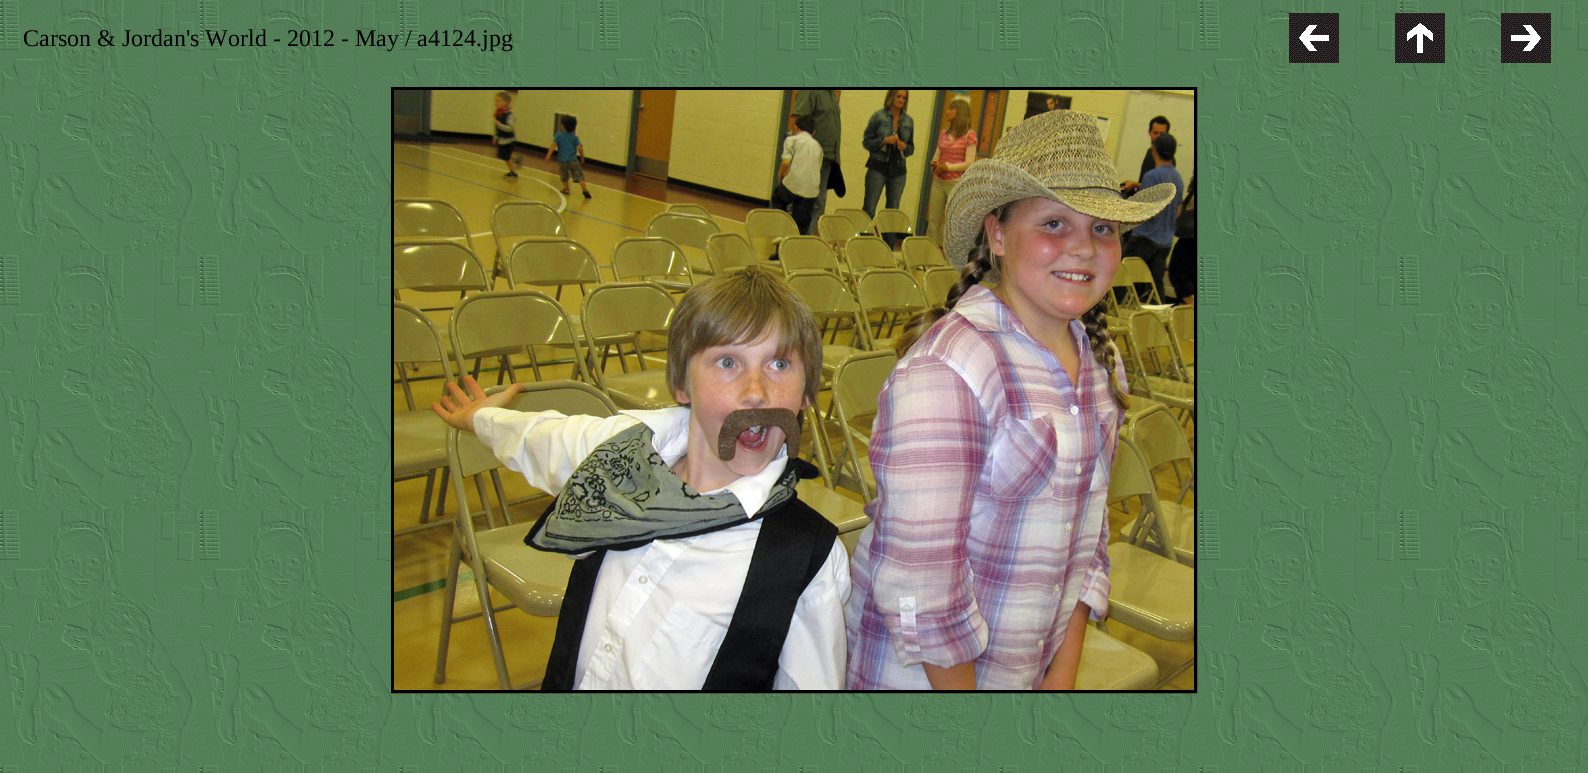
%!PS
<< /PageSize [1588 773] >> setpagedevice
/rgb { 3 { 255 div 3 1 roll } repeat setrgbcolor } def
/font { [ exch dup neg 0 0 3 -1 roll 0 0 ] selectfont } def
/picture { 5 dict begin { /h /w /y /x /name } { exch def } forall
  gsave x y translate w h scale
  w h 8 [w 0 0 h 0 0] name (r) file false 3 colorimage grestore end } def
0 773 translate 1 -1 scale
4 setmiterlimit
255 255 255 rgb
0 0 1588 773 rectfill
(img/1.rgb) 0 0 1588 773 picture
(img/2.rgb) 1289 13 50 50 picture
(img/3.rgb) 1395 13 50 50 picture
(img/4.rgb) 1501 13 50 50 picture
0 0 0 rgb
3 setlinewidth
392.5 88.5 803 603 rectstroke
(img/5.rgb) 394 90 800 600 picture
/LiberationSerif-Regular 24 font
23 46 moveto (Carson & Jordan's World - 2012 - May / a4124.jpg) show
showpage
